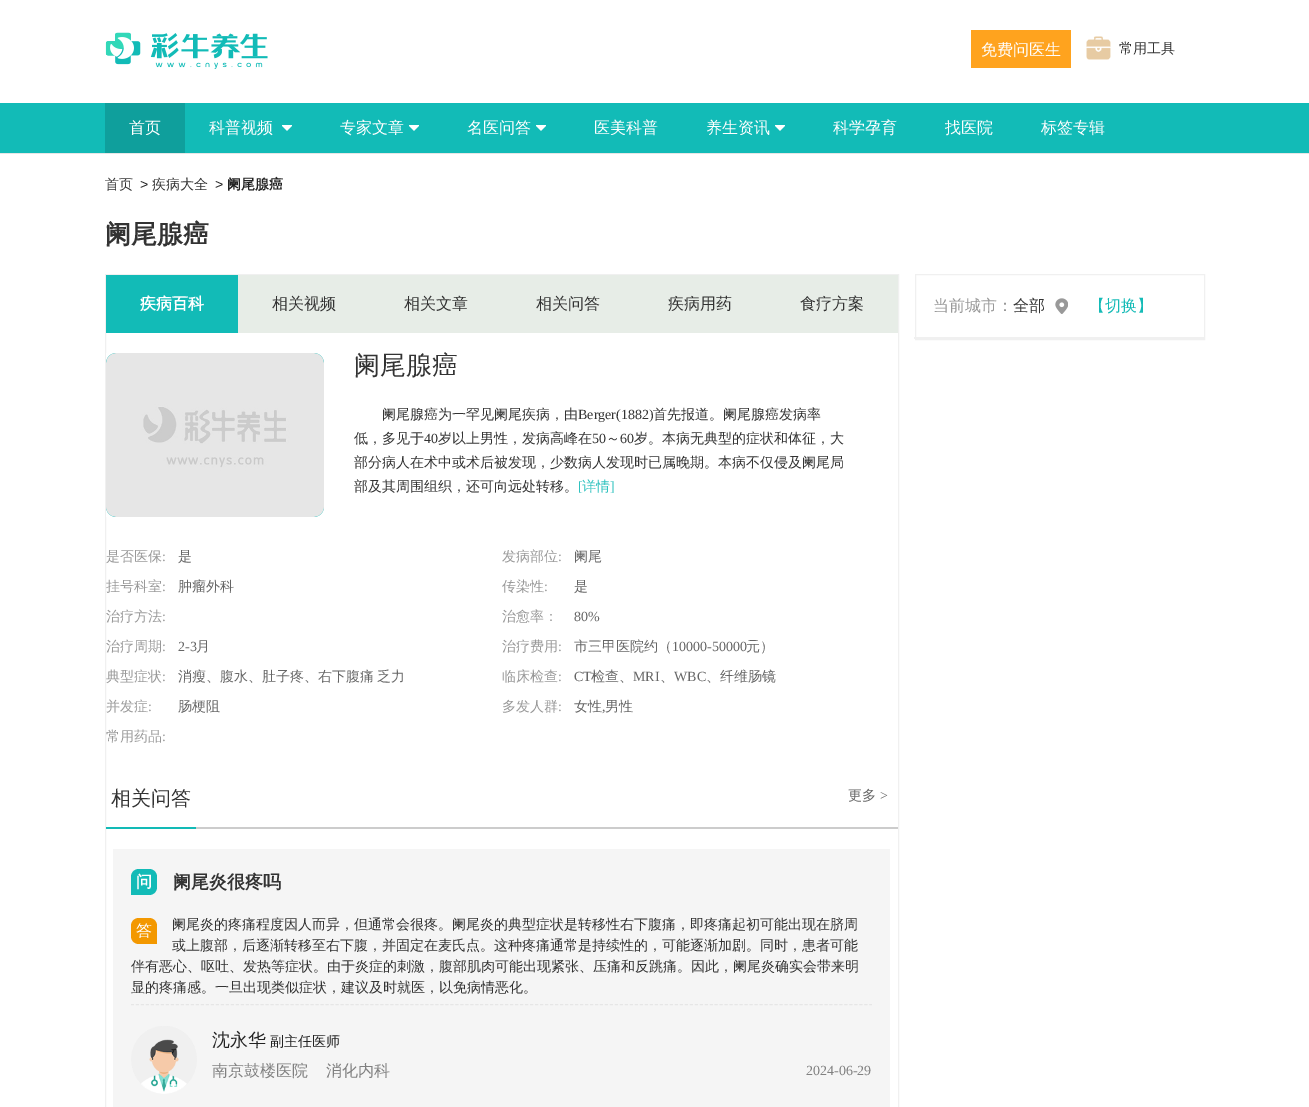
%!PS
<< /PageSize [1309 1107] >> setpagedevice
/rgb { 3 { 255 div 3 1 roll } repeat setrgbcolor } def
/font { [ exch dup neg 0 0 3 -1 roll 0 0 ] selectfont } def
/roundrect { 5 dict begin { /r /h /w /y /x } { exch def } forall
  x r add y moveto x w add y 2 copy h add r arct x w add y h add x 1 index r arct
  x y h add x y r arct x y 2 copy exch w add exch r arct closepath end } def
/picture { 5 dict begin { /h /w /y /x /name } { exch def } forall
  gsave x y translate w h scale
  w h 8 [w 0 0 h 0 0] name (r) file false 3 colorimage grestore end } def
0 1107 translate 1 -1 scale
4 setmiterlimit
255 255 255 rgb
0 0 1309 1107 rectfill
(img/1.rgb) 105 32 163 37 picture
255 163 30 rgb
971 30 100 38 rectfill
(img/2.rgb) 1086 36 25 24 picture
[
  [0 103 1309 50 18 187 183]
  [0 153 1309 1 230 230 230]
  [105 103 80 50 15 159 156]
] { aload pop rgb rectfill } forall
(img/3.rgb) 282 125 10 6 picture
(img/3.rgb) 409 125 10 6 picture
(img/3.rgb) 536 125 10 6 picture
(img/3.rgb) 775 125 10 6 picture
240 240 240 rgb
105.5 274.5 793 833 rectstroke
231 237 231 rgb
238 275 660 58 rectfill
18 187 183 rgb
106 275 132 58 rectfill
106 353 218 164 10 roundrect fill
(img/4.rgb) 106 353 218 164 picture
[
  [106 827 90 2 18 186 182]
  [196 827 702 2 204 204 204]
  [113 849 777 258 245 245 245]
] { aload pop rgb rectfill } forall
18 187 183 rgb
139 869 moveto 149 869 lineto 153.5 869 157 872.5 157 877 curveto 157 887 lineto 157 891.5 153.5 895 149 895 curveto 131 895 lineto 131 877 lineto 131 872.5 134.5 869 139 869 curveto closepath fill
230 230 230 rgb
[3 1.99] 0 setdash
131 1004.5 moveto 872 1004.5 lineto stroke
243 152 0 rgb
139 918 moveto 149 918 lineto 153.5 918 157 921.5 157 926 curveto 157 944 lineto 139 944 lineto 134.5 944 131 940.5 131 936 curveto 131 926 lineto 131 921.5 134.5 918 139 918 curveto closepath fill
(img/5.rgb) 131 1026 66 68 picture
240 240 240 rgb
[] 0 setdash
915.5 274.5 289 65 rectstroke
(img/6.rgb) 1055 298 13 16 picture
914 337 290 2 rectfill
/WenQuanYiZenHei-Medium 16 font
255 255 255 rgb
981 55 moveto (免费问医生) show
/WenQuanYiZenHei-Medium 14 font
51 51 51 rgb
1119 53 moveto (常用工具) show
/WenQuanYiZenHei-Medium 16 font
255 255 255 rgb
[
  [(首页) 129 133]
  [(科普视频) 209 133]
  [(专家文章) 340 133]
  [(名医问答) 467 133]
  [(医美科普) 594 133]
  [(养生资讯) 706 133]
  [(科学孕育) 833 133]
  [(找医院) 945 133]
  [(标签专辑) 1041 133]
] { aload pop moveto show } forall
/WenQuanYiZenHei-Medium 14 font
51 51 51 rgb
105 189 moveto (首页) show
/LiberationSans-Regular 14 font
34 34 34 rgb
140 189 moveto (>) show
/WenQuanYiZenHei-Medium 14 font
51 51 51 rgb
152 189 moveto (疾病大全) show
/LiberationSans-Regular 14 font
34 34 34 rgb
215 189 moveto (>) show
/WenQuanYiZenHei-Bold 14 font
227 189 moveto (阑尾腺癌) show
/WenQuanYiZenHei-Bold 26 font
51 51 51 rgb
105 243 moveto (阑尾腺癌) show
/WenQuanYiZenHei-Bold 16 font
255 255 255 rgb
140 309 moveto (疾病百科) show
/WenQuanYiZenHei-Medium 16 font
51 51 51 rgb
[
  [(相关视频) 272 309]
  [(相关文章) 404 309]
  [(相关问答) 536 309]
  [(疾病用药) 668 309]
  [(食疗方案) 800 309]
] { aload pop moveto show } forall
/WenQuanYiZenHei-Medium 26 font
354 374 moveto (阑尾腺癌) show
/WenQuanYiZenHei-Medium 14 font
382 419 moveto (阑尾腺癌为一罕见阑尾疾病，由) show
/LiberationSerif-Regular 14 font
578 419 moveto (Berger\(1882\)) show
/WenQuanYiZenHei-Medium 14 font
653 419 moveto (首先报道。阑尾腺癌发病率) show
354 443 moveto (低，多见于) show
/LiberationSerif-Regular 14 font
424 443 moveto (40) show
/WenQuanYiZenHei-Medium 14 font
438 443 moveto (岁以上男性，发病高峰在) show
/LiberationSerif-Regular 14 font
592 443 moveto (50) show
/WenQuanYiZenHei-Medium 14 font
606 443 moveto (～) show
/LiberationSerif-Regular 14 font
620 443 moveto (60) show
/WenQuanYiZenHei-Medium 14 font
[
  [(岁。本病无典型的症状和体征，大) 634 443]
  [(部分病人在术中或术后被发现，少数病人发现时已属晚期。本病不仅侵及阑尾局) 354 467]
  [(部及其周围组织，还可向远处转移。) 354 491]
] { aload pop moveto show } forall
/LiberationSerif-Regular 14 font
47 194 191 rgb
578 491 moveto ([) show
/WenQuanYiZenHei-Medium 14 font
582 491 moveto (详情) show
/LiberationSerif-Regular 14 font
610 491 moveto (]) show
/WenQuanYiZenHei-Medium 14 font
153 153 153 rgb
106 561 moveto (是否医保) show
/LiberationSerif-Regular 14 font
162 561 moveto (:) show
/WenQuanYiZenHei-Medium 14 font
102 102 102 rgb
178 561 moveto (是) show
153 153 153 rgb
502 561 moveto (发病部位) show
/LiberationSerif-Regular 14 font
558 561 moveto (:) show
/WenQuanYiZenHei-Medium 14 font
102 102 102 rgb
574 561 moveto (阑尾) show
153 153 153 rgb
106 591 moveto (挂号科室) show
/LiberationSerif-Regular 14 font
162 591 moveto (:) show
/WenQuanYiZenHei-Medium 14 font
102 102 102 rgb
178 591 moveto (肿瘤外科) show
153 153 153 rgb
502 591 moveto (传染性) show
/LiberationSerif-Regular 14 font
544 591 moveto (:) show
/WenQuanYiZenHei-Medium 14 font
102 102 102 rgb
574 591 moveto (是) show
153 153 153 rgb
106 621 moveto (治疗方法) show
/LiberationSerif-Regular 14 font
162 621 moveto (:) show
/WenQuanYiZenHei-Medium 14 font
502 621 moveto (治愈率：) show
/LiberationSerif-Regular 14 font
102 102 102 rgb
574 621 moveto (80%) show
/WenQuanYiZenHei-Medium 14 font
153 153 153 rgb
106 651 moveto (治疗周期) show
/LiberationSerif-Regular 14 font
162 651 moveto (:) show
102 102 102 rgb
178 651 moveto (2-3) show
/WenQuanYiZenHei-Medium 14 font
196 651 moveto (月) show
153 153 153 rgb
502 651 moveto (治疗费用) show
/LiberationSerif-Regular 14 font
558 651 moveto (:) show
/WenQuanYiZenHei-Medium 14 font
102 102 102 rgb
574 651 moveto (市三甲医院约（) show
/LiberationSerif-Regular 14 font
672 651 moveto (10000-50000) show
/WenQuanYiZenHei-Medium 14 font
746 651 moveto (元）) show
153 153 153 rgb
106 681 moveto (典型症状) show
/LiberationSerif-Regular 14 font
162 681 moveto (:) show
/WenQuanYiZenHei-Medium 14 font
102 102 102 rgb
178 681 moveto -1 0 32 (消瘦、腹水、肚子疼、右下腹痛 乏力) widthshow
153 153 153 rgb
502 681 moveto (临床检查) show
/LiberationSerif-Regular 14 font
558 681 moveto (:) show
102 102 102 rgb
574 681 moveto (CT) show
/WenQuanYiZenHei-Medium 14 font
591 681 moveto (检查、) show
/LiberationSerif-Regular 14 font
633 681 moveto (MRI) show
/WenQuanYiZenHei-Medium 14 font
660 681 moveto (、) show
/LiberationSerif-Regular 14 font
674 681 moveto (WBC) show
/WenQuanYiZenHei-Medium 14 font
706 681 moveto (、纤维肠镜) show
153 153 153 rgb
106 711 moveto (并发症) show
/LiberationSerif-Regular 14 font
148 711 moveto (:) show
/WenQuanYiZenHei-Medium 14 font
102 102 102 rgb
178 711 moveto (肠梗阻) show
153 153 153 rgb
502 711 moveto (多发人群) show
/LiberationSerif-Regular 14 font
558 711 moveto (:) show
/WenQuanYiZenHei-Medium 14 font
102 102 102 rgb
574 711 moveto (女性) show
/LiberationSerif-Regular 14 font
602 711 moveto (,) show
/WenQuanYiZenHei-Medium 14 font
605 711 moveto (男性) show
153 153 153 rgb
106 741 moveto (常用药品) show
/LiberationSerif-Regular 14 font
162 741 moveto (:) show
/WenQuanYiZenHei-Medium 20 font
51 51 51 rgb
111 805 moveto (相关问答) show
/WenQuanYiZenHei-Medium 14 font
102 102 102 rgb
848 800 moveto (更多) show
/LiberationSerif-Regular 14 font
880 800 moveto (>) show
/WenQuanYiZenHei-Bold 16 font
255 255 255 rgb
136 887 moveto (问) show
/WenQuanYiZenHei-Bold 18 font
51 51 51 rgb
173 888 moveto (阑尾炎很疼吗) show
/WenQuanYiZenHei-Medium 14 font
[
  [(阑尾炎的疼痛程度因人而异，但通常会很疼。阑尾炎的典型症状是转移性右下腹痛，即疼痛起初可能出现在脐周) 172 929]
  [(或上腹部，后逐渐转移至右下腹，并固定在麦氏点。这种疼痛通常是持续性的，可能逐渐加剧。同时，患者可能) 172 950]
  [(伴有恶心、呕吐、发热等症状。由于炎症的刺激，腹部肌肉可能出现紧张、压痛和反跳痛。因此，阑尾炎确实会带来明) 131 971]
  [(显的疼痛感。一旦出现类似症状，建议及时就医，以免病情恶化。) 131 992]
] { aload pop moveto show } forall
/WenQuanYiZenHei-Medium 16 font
255 255 255 rgb
136 936 moveto (答) show
/WenQuanYiZenHei-Medium 18 font
34 34 34 rgb
212 1046 moveto (沈永华) show
/WenQuanYiZenHei-Medium 14 font
270 1046 moveto (副主任医师) show
/WenQuanYiZenHei-Medium 16 font
128 128 128 rgb
212 1076 moveto (南京鼓楼医院) show
326 1076 moveto (消化内科) show
/LiberationSerif-Regular 14 font
806 1075 moveto (2024-06-29) show
/WenQuanYiZenHei-Medium 16 font
153 153 153 rgb
933 311 moveto (当前城市：) show
51 51 51 rgb
1013 311 moveto (全部) show
21 187 183 rgb
1089 311 moveto (【切换】) show
showpage
